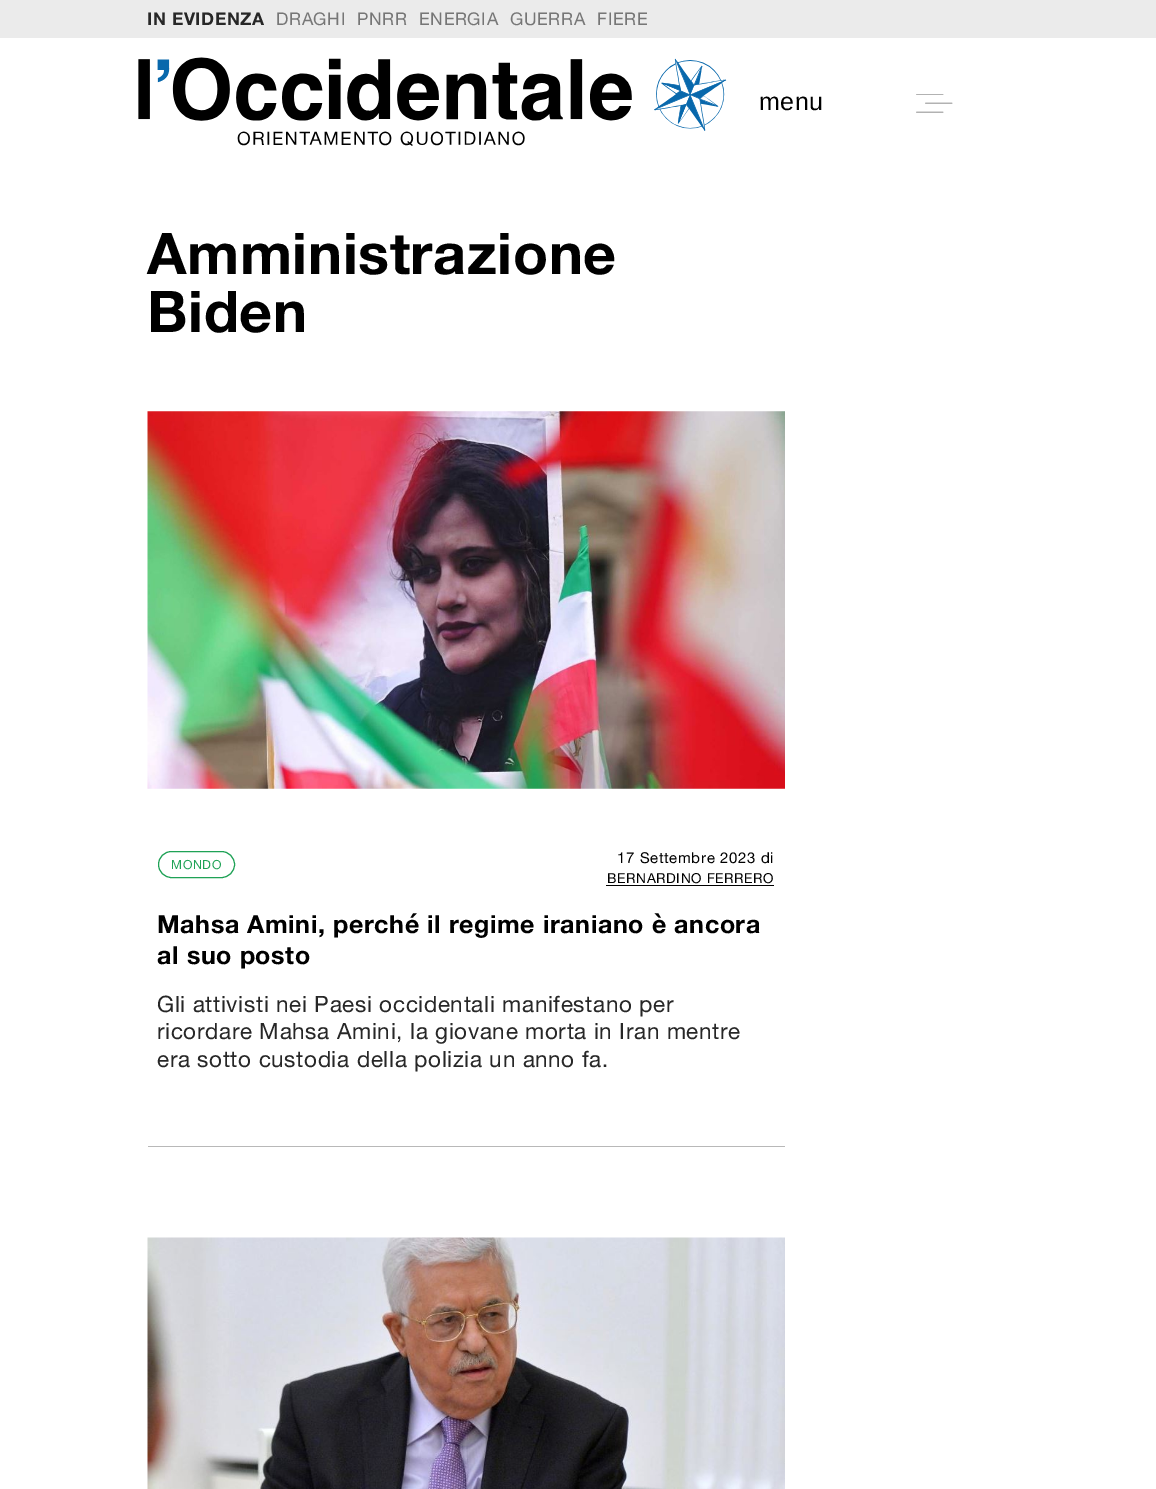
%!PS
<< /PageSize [1156 1489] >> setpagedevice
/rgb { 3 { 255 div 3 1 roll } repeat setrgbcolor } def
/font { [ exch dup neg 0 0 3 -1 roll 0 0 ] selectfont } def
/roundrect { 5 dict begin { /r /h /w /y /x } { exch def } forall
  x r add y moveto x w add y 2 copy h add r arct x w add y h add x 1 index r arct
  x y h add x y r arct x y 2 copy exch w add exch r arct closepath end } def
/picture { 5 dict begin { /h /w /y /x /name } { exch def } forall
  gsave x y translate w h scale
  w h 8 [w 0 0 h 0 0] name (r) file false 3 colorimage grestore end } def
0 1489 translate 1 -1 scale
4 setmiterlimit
255 255 255 rgb
0 0 1156 1489 rectfill
235 235 235 rgb
0 0 1156 38 rectfill
(img/1.rgb) 138 57 589 89 picture
gsave
894 94 80 19 rectclip
112 112 112 rgb
0.6 setlinewidth
1 setlinecap
916.5 94 moveto 943 94 lineto stroke
grestore
112 112 112 rgb
0.6 setlinewidth
1 setlinecap
925.5 103 moveto 952 103 lineto 916.5 112 moveto 943 112 lineto stroke
(img/2.rgb) 147 411 638 378 picture
31 162 86 rgb
1 setlinewidth
0 setlinecap
158.5 851.5 76 26 13 roundrect stroke
0 0 0 rgb
606 885 168 1 rectfill
184 184 184 rgb
148 1146 637 1 rectfill
(img/3.rgb) 147 1237 638 252 picture
/HelveticaNeue-Bold 17.5 font
39 39 39 rgb
147 25 moveto 0.62 0 (IN EVIDENZA) ashow
/HelveticaNeue-Regular 17.5 font
118 118 118 rgb
276 25 moveto 0.62 0 (DRAGHI) ashow
357 25 moveto 0.62 0 (PNRR) ashow
419 25 moveto 0.62 0 (ENERGIA) ashow
510 25 moveto 0.62 0 (GUERRA) ashow
597 25 moveto 0.62 0 (FIERE) ashow
/LiberationSans-Regular 25 font
0 0 0 rgb
759 110 moveto 0.62 0 (menu) ashow
/HelveticaNeue-Bold 57.5 font
147 274 moveto 0.62 0 (Amministrazione) ashow
147 332 moveto 0.62 0 (Biden) ashow
/HelveticaNeue-Regular 12.5 font
31 162 86 rgb
171 869 moveto 0.62 0 (MONDO) ashow
/HelveticaNeue-Regular 15 font
0 0 0 rgb
617 863 moveto 0.62 0 (17 Settembre 2023 di) ashow
/HelveticaNeue-Regular 13.75 font
607 883 moveto 0.62 0 (BERNARDINO FERRERO) ashow
/HelveticaNeue-Bold 25 font
157 933 moveto 0.62 0 (Mahsa Amini, perché il regime iraniano è ancora) ashow
157 964 moveto 0.62 0 (al suo posto) ashow
/HelveticaNeue-Regular 22.5 font
39 39 39 rgb
157 1012 moveto 0.62 0 (Gli attivisti nei Paesi occidentali manifestano per) ashow
157 1039 moveto 0.62 0 (ricordare Mahsa Amini, la giovane morta in Iran mentre) ashow
157 1067 moveto 0.62 0 (era sotto custodia della polizia un anno fa.) ashow
showpage
